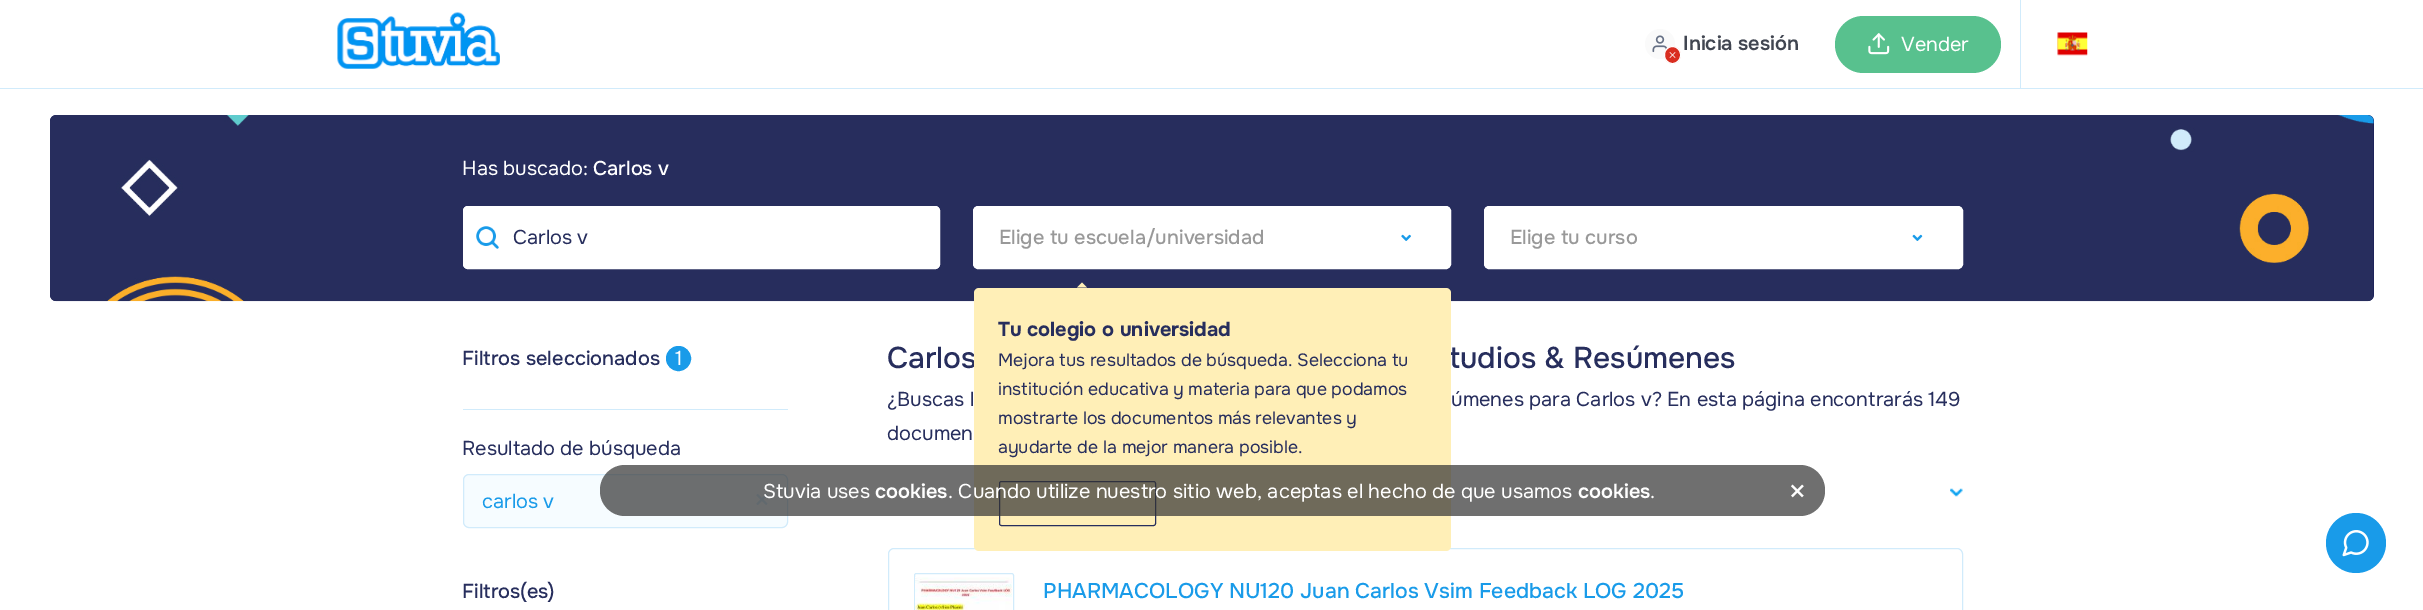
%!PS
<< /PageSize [2423 610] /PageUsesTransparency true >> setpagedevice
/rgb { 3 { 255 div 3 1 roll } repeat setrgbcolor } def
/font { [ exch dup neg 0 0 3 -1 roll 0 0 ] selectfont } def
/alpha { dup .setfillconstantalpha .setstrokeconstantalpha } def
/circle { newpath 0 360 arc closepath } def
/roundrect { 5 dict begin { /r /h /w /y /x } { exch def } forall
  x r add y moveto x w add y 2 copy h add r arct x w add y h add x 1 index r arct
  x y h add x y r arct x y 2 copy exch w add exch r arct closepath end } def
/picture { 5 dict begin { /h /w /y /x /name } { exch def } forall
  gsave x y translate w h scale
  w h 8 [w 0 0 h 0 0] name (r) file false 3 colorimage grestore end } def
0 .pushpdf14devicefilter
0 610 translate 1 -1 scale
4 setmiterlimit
255 255 255 rgb
0 0 2423 610 rectfill
209 235 251 rgb
0 88 2423 1 rectfill
(img/1.rgb) 337 12 163 57 picture
250 250 250 rgb
1660 44 15 circle fill
(img/2.rgb) 1652 35 16 18 picture
217 45 32 rgb
1664.5 46.5 16 17 8 roundrect gsave fill grestore
255 255 255 rgb
stroke
(img/3.rgb) 1669 52 7 6 picture
88 193 142 rgb
1835 16 166 57 28.5 roundrect fill
(img/4.rgb) 1868 33 22 22 picture
209 235 251 rgb
2020 0 1 88 rectfill
(img/5.rgb) 2057 32 31 24 picture
19 23 86 rgb
50 115 2324 186 6 roundrect fill
(img/6.rgb) 50 115 2324 187 picture
255 255 255 rgb
463 206 477 63 5 roundrect fill
(img/7.rgb) 476 226 23 23 picture
463.5 206.5 476 62 4.5 roundrect stroke
973.5 206.5 477 62 4.5 roundrect gsave fill grestore
stroke
(img/8.rgb) 1401 234 10 7 picture
255 239 183 rgb
1087 287.5 moveto 1077 287.5 lineto 1082 282.5 lineto closepath fill
255 255 255 rgb
1484.5 206.5 478 62 4.5 roundrect gsave fill grestore
stroke
(img/9.rgb) 1912 234 11 7 picture
25 155 233 rgb
678.5 358.5 12 circle gsave fill grestore
stroke
209 235 251 rgb
463 409 325 1 rectfill
246 252 255 rgb
463.5 474.5 324 53 5.5 roundrect gsave fill grestore
209 235 251 rgb
stroke
(img/10.rgb) 756 494 12 11 picture
(img/11.rgb) 1950 488 13 9 picture
888.5 548.5 1074 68 5.5 roundrect stroke
914.5 573.5 99 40 2 roundrect stroke
(img/12.rgb) 915 577 97 33 picture
25 155 233 rgb
2356 543 30 circle fill
(img/13.rgb) 2342 530 27 27 picture
/Onest-SemiBold 20 font
65 70 81 rgb
1683 50 moveto (Inicia sesión) show
/Onest-Regular 20 font
255 255 255 rgb
1901 51 moveto (Vender) show
462 175 moveto (Has buscado:) show
/Onest-Medium 20 font
593 175 moveto (Carlos v) show
/Onest-Regular 20 font
39 46 93 rgb
513 244 moveto (Carlos v) show
/Onest-Medium 20 font
153 153 153 rgb
999 244 moveto (Elige tu escuela/universidad) show
1510 244 moveto (Elige tu curso) show
39 46 93 rgb
462 365 moveto (Filtros seleccionados) show
/Onest-Regular 20 font
255 255 255 rgb
675 365 moveto (1) show
39 46 93 rgb
462 455 moveto -0.25 0 32 (Resultado de búsqueda) widthshow
25 155 233 rgb
482 508 moveto (carlos v) show
/Onest-Medium 20 font
39 46 93 rgb
462 598 moveto (Filtros\(es\)) show
/Onest-Medium 30 font
887 368 moveto (Carlos) show
1449 368 moveto (tudios & Resúmenes) show
255 239 183 rgb
974 288 477 263 5 roundrect fill
39 46 93 rgb
999.5 481.5 156 44 2 roundrect stroke
/Onest-Regular 17.75 font
998 453 moveto (ayudarte de la mejor manera posible.) show
998 424 moveto -0.5 0 32 (mostrarte los documentos más relevantes y) widthshow
998 395 moveto -0.25 0 32 (institución educativa y materia para que podamos) widthshow
998 366 moveto -0.25 0 32 (Mejora tus resultados de búsqueda. Selecciona tu) widthshow
/Onest-Bold 20 font
998 336 moveto (Tu colegio o universidad) show
/Onest-Regular 20 font
[
  [(¿Buscas l) 887 406]
  [(úmenes para Carlos v? En esta página encontrarás 149) 1451 406]
  [(documen) 887 440]
] { aload pop moveto show } forall
/Onest-Medium 21.3 font
25 155 233 rgb
1043 598 moveto (PHARMACOLOGY NU120 Juan Carlos Vsim Feedback LOG 2025) show
0.7 alpha
50 50 50 rgb
600 465 1225 51 25 roundrect fill
/Onest-Regular 20 font
1 alpha
255 255 255 rgb
763 498 moveto (Stuvia uses) show
/Onest-SemiBold 20 font
875 498 moveto (cookies) show
/Onest-Regular 20 font
948 498 moveto (. Cuando utilize nuestro sitio web, aceptas el hecho de que usamos) show
/Onest-SemiBold 20 font
1578 498 moveto (cookies) show
/Onest-Regular 20 font
1650 498 moveto (.) show
/Onest-Regular 34 font
1788 503 moveto (×) show
.poppdf14devicefilter showpage
